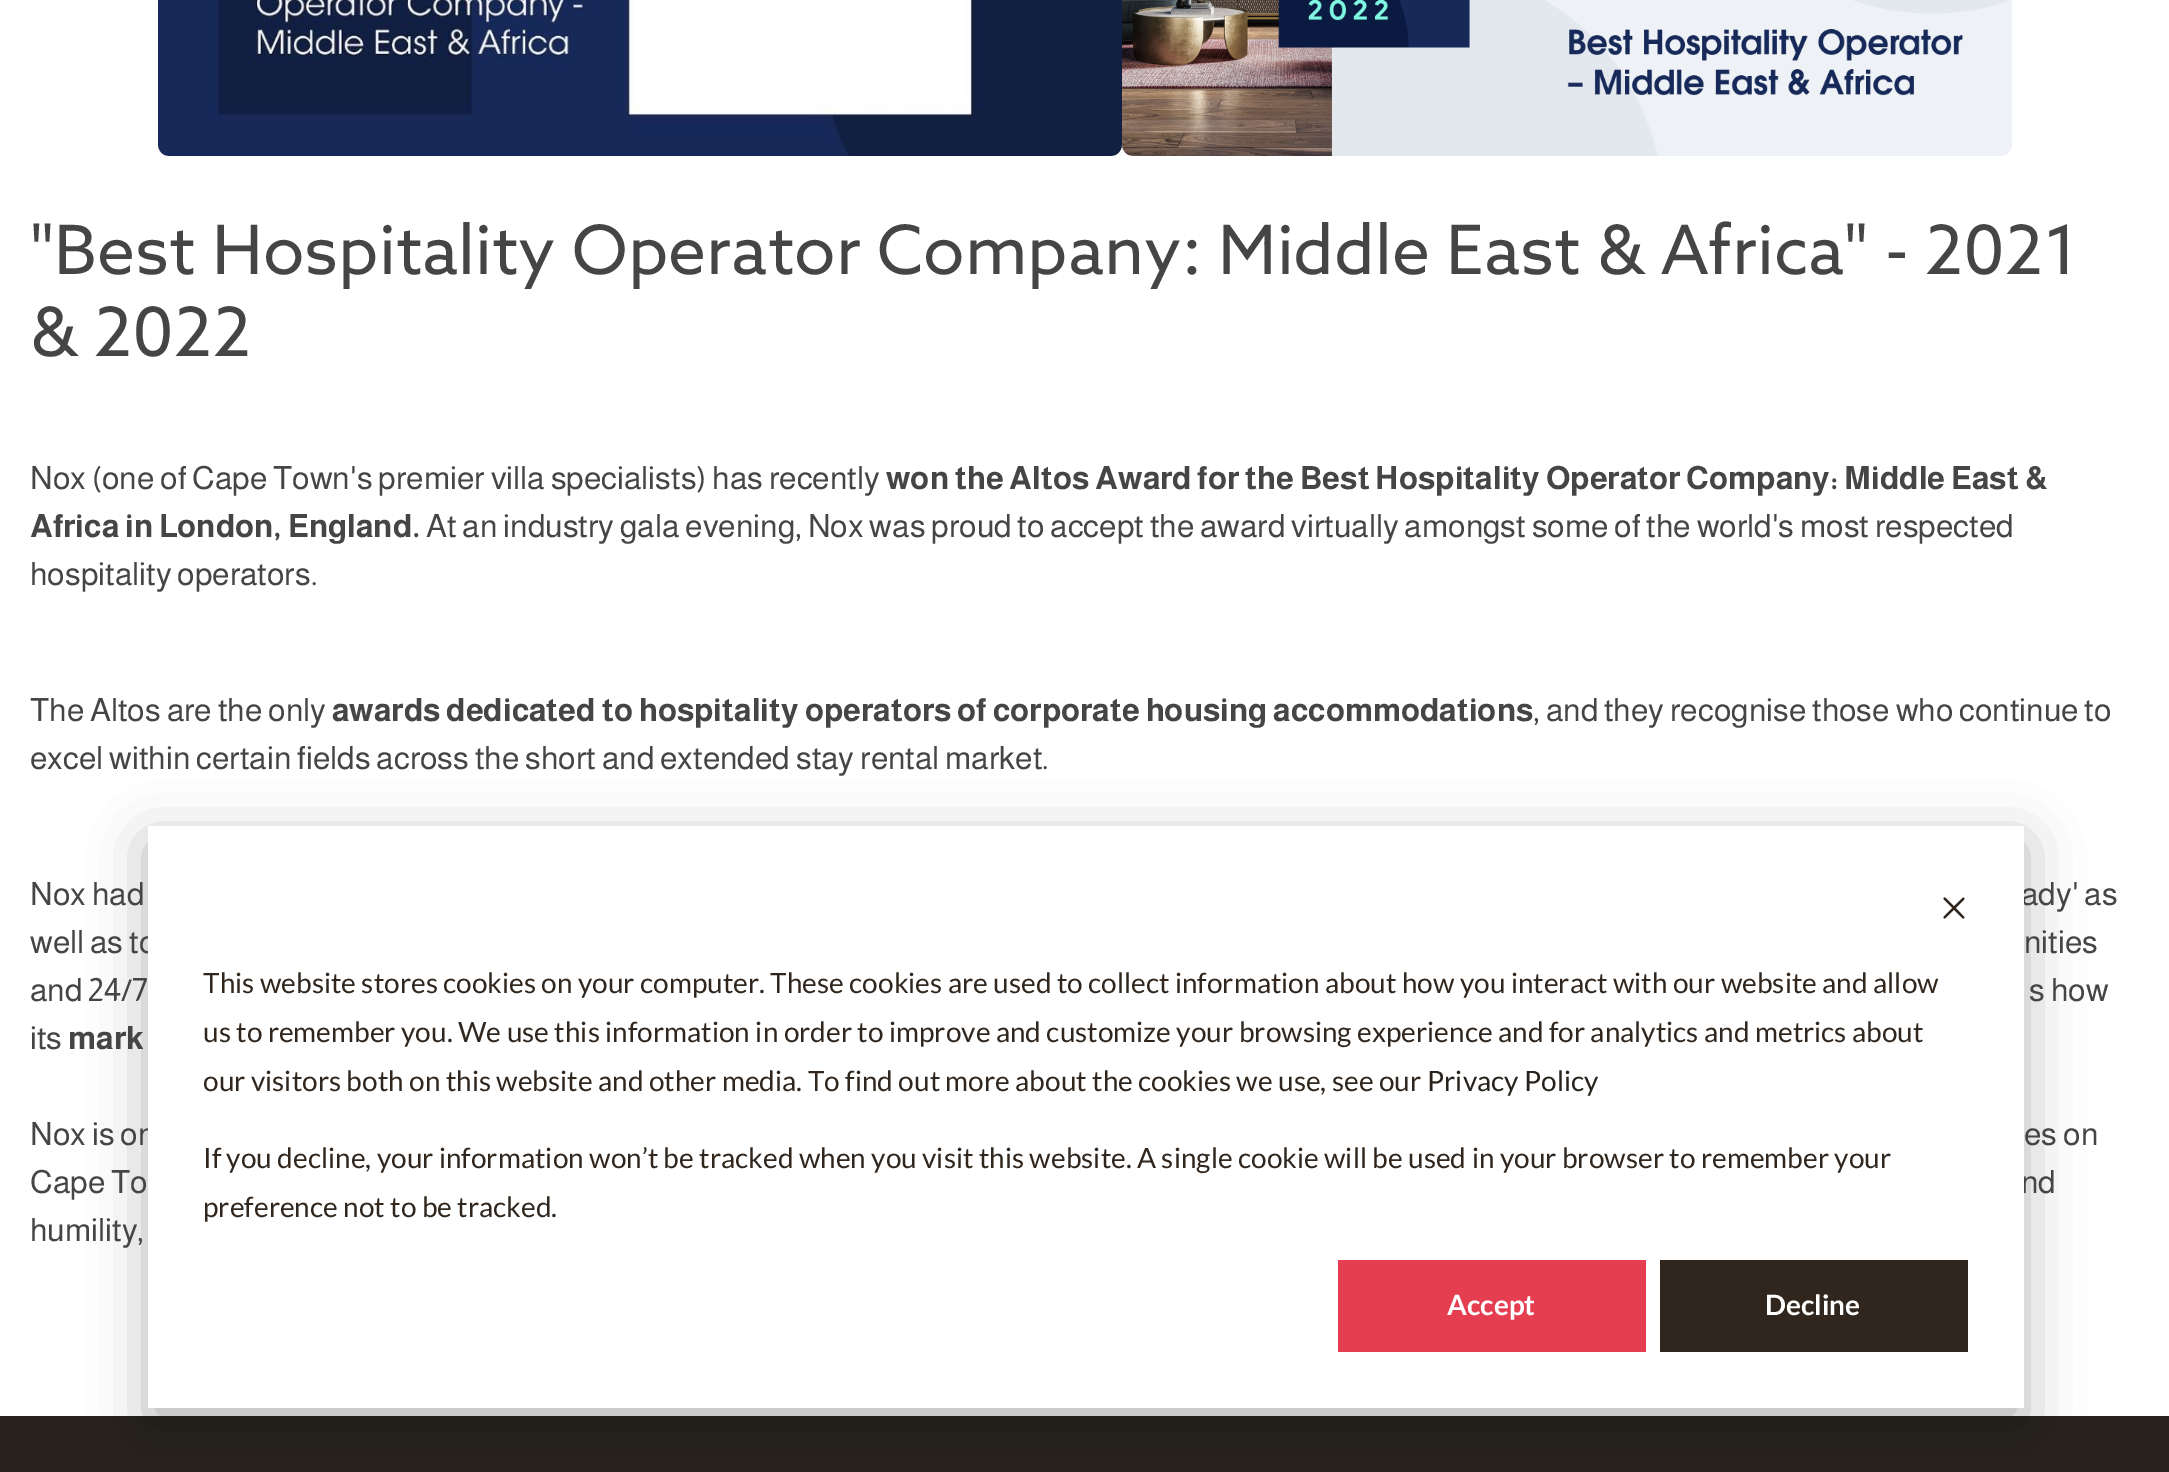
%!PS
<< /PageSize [2169 1472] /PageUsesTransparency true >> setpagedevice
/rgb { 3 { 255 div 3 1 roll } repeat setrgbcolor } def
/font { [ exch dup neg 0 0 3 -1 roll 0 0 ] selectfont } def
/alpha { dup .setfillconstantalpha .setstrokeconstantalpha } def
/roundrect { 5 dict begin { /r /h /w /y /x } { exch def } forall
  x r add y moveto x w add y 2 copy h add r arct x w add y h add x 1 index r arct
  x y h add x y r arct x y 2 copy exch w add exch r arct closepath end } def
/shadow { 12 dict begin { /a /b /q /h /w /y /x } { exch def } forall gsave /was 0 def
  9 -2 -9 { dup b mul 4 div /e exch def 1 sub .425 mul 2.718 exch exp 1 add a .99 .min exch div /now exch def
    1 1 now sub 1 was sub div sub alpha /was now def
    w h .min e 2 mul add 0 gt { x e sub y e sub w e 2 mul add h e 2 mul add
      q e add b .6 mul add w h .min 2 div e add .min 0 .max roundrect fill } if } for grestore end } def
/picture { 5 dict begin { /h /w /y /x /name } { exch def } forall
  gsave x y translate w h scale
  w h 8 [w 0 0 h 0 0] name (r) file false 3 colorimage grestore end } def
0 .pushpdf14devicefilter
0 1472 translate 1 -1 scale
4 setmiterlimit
255 255 255 rgb
0 0 2169 1472 rectfill
(img/1.rgb) 158 0 964 156 picture
(img/2.rgb) 1122 0 890 156 picture
39 34 28 rgb
0 1416 2169 56 rectfill
0 0 0 rgb
148 842 1876 582 0 28 0.28 shadow
/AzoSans-Regular 68 font
69 69 69 rgb
30 274 moveto ("Best Hospitality Operator Company: Middle East & Africa" - 2021) show
30 356 moveto (& 2022) show
/Almarai-Regular 32 font
30 489 moveto (Nox \(one of Cape Town's premier villa specialists\) has recently) show
/Almarai-Bold 32 font
886 489 moveto (won the Altos Award for the Best Hospitality Operator Company: Middle East &) show
30 537 moveto (Africa in London, England.) show
/Almarai-Regular 32 font
[
  [(At an industry gala evening, Nox was proud to accept the award virtually amongst some of the world's most respected) 426 537]
  [(hospitality operators.) 30 585]
  [(The Altos are the only) 30 721]
] { aload pop moveto show } forall
/Almarai-Bold 32 font
332 721 moveto (awards dedicated to hospitality operators of corporate housing accommodations) show
/Almarai-Regular 32 font
[
  [(, and they recognise those who continue to) 1533 721]
  [(excel within certain fields across the short and extended stay rental market.) 30 769]
  [(Nox had) 30 905]
  [(ady' as) 2021 905]
  [(well as to) 30 953]
  [(nities) 2024 953]
  [(and 24/7) 30 1001]
  [(s how) 2029 1001]
  [(its) 30 1049]
] { aload pop moveto show } forall
/Almarai-Bold 32 font
68 1049 moveto (mark) show
/Almarai-Regular 32 font
[
  [(Nox is on) 30 1145]
  [(es on) 2024 1145]
  [(Cape To) 30 1193]
  [(nd) 2021 1193]
  [(humility,) 30 1241]
] { aload pop moveto show } forall
255 255 255 rgb
148 826 1876 582 rectfill
(img/3.rgb) 1943 897 22 22 picture
/Lato-Regular 28 font
48 38 29 rgb
[
  [(This website stores cookies on your computer. These cookies are used to collect information about how you interact with our website and allow) 203 993]
  [(us to remember you. We use this information in order to improve and customize your browsing experience and for analytics and metrics about) 203 1042]
  [(our visitors both on this website and other media. To find out more about the cookies we use, see our) 203 1091]
] { aload pop moveto show } forall
39 34 28 rgb
1427 1091 moveto (Privacy Policy) show
48 38 29 rgb
203 1168 moveto (If you decline, your information won’t be tracked when you visit this website. A single cookie will be used in your browser to remember your) show
203 1217 moveto (preference not to be tracked.) show
229 62 81 rgb
1338 1260 308 92 rectfill
/Lato-Bold 28 font
255 255 255 rgb
1447 1315 moveto (Accept) show
48 38 29 rgb
1660 1260 308 92 rectfill
255 255 255 rgb
1765 1315 moveto (Decline) show
.poppdf14devicefilter showpage
